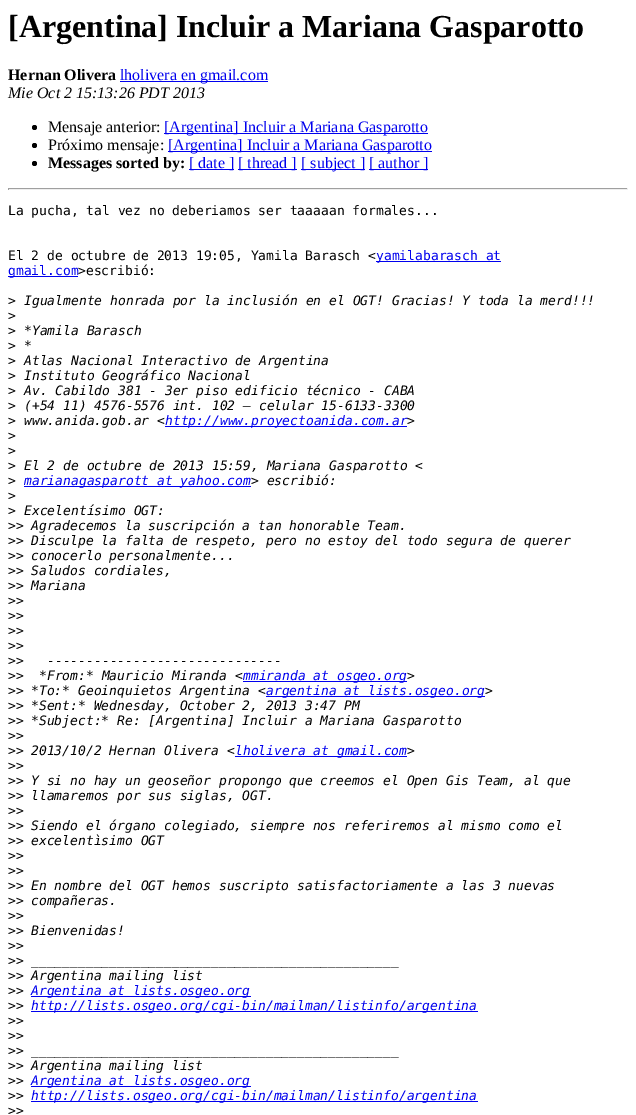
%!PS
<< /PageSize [636 1115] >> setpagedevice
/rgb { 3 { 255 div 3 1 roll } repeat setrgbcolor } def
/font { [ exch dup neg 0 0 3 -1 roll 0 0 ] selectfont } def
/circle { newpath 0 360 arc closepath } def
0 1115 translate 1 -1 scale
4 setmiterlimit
255 255 255 rgb
0 0 636 1115 rectfill
0 0 238 rgb
120 81 148 1 rectfill
0 0 0 rgb
34.5 127.5 2.5 circle fill
0 0 238 rgb
164 133 264 1 rectfill
0 0 0 rgb
34.5 145.5 2.5 circle fill
0 0 238 rgb
168 151 264 1 rectfill
0 0 0 rgb
34.5 163.5 2.5 circle fill
[
  [189 169 45 1 0 0 238]
  [238 169 59 1 0 0 238]
  [301 169 64 1 0 0 238]
  [369 169 59 1 0 0 238]
  [8 188 620 1 159 159 159]
  [627 188 1 2 238 238 238]
  [8 189 620 1 238 238 238]
  [8 188 1 2 159 159 159]
  [376 261 125 1 0 0 238]
  [8 276 70 1 0 0 238]
  [165 426 242 1 0 0 238]
  [24 486 227 1 0 0 238]
  [243 681 164 1 0 0 238]
  [266 696 219 1 0 0 238]
  [235 756 172 1 0 0 238]
  [31 996 220 1 0 0 238]
  [31 1011 447 1 0 0 238]
  [31 1086 220 1 0 0 238]
  [31 1101 447 1 0 0 238]
] { aload pop rgb rectfill } forall
/LiberationSerif-Bold 32 font
0 0 0 rgb
8 37 moveto ([Argentina] Incluir a Mariana Gasparotto) show
/LiberationSerif-Bold 16 font
8 80 moveto (Hernan Olivera) show
/LiberationSerif-Regular 16 font
0 0 238 rgb
120 80 moveto (lholivera en gmail.com) show
/LiberationSerif-Italic 16 font
0 0 0 rgb
8 98 moveto (Mie Oct 2 15:13:26 PDT 2013) show
/LiberationSerif-Regular 16 font
48 132 moveto (Mensaje anterior:) show
0 0 238 rgb
164 132 moveto ([Argentina] Incluir a Mariana Gasparotto) show
0 0 0 rgb
48 150 moveto (Próximo mensaje:) show
0 0 238 rgb
168 150 moveto ([Argentina] Incluir a Mariana Gasparotto) show
/LiberationSerif-Bold 16 font
0 0 0 rgb
48 168 moveto (Messages sorted by:) show
/LiberationSerif-Regular 16 font
0 0 238 rgb
[
  [([ date ]) 189 168]
  [([ thread ]) 238 168]
  [([ subject ]) 301 168]
  [([ author ]) 369 168]
] { aload pop moveto show } forall
/DejaVuSansMono-Regular 13 font
0 0 0 rgb
8 215 moveto (La pucha, tal vez no deberiamos ser taaaaan formales...) show
8 260 moveto (El 2 de octubre de 2013 19:05, Yamila Barasch <) show
0 0 238 rgb
376 260 moveto (yamilabarasch at) show
8 275 moveto (gmail.com) show
0 0 0 rgb
78 275 moveto (>escribió:) show
8 305 moveto (>) show
/DejaVuSansMono-Italic 13 font
24 305 moveto (Igualmente honrada por la inclusión en el OGT! Gracias! Y toda la merd!!!) show
/DejaVuSansMono-Regular 13 font
8 320 moveto (>) show
8 335 moveto (>) show
/DejaVuSansMono-Italic 13 font
24 335 moveto (*Yamila Barasch) show
/DejaVuSansMono-Regular 13 font
8 350 moveto (>) show
/DejaVuSansMono-Italic 13 font
24 350 moveto (*) show
/DejaVuSansMono-Regular 13 font
8 365 moveto (>) show
/DejaVuSansMono-Italic 13 font
24 365 moveto (Atlas Nacional Interactivo de Argentina) show
/DejaVuSansMono-Regular 13 font
8 380 moveto (>) show
/DejaVuSansMono-Italic 13 font
24 380 moveto (Instituto Geográfico Nacional) show
/DejaVuSansMono-Regular 13 font
8 395 moveto (>) show
/DejaVuSansMono-Italic 13 font
24 395 moveto (Av. Cabildo 381 - 3er piso edificio técnico - CABA) show
/DejaVuSansMono-Regular 13 font
8 410 moveto (>) show
/DejaVuSansMono-Italic 13 font
24 410 moveto (\(+54 11\) 4576-5576 int. 102 – celular 15-6133-3300) show
/DejaVuSansMono-Regular 13 font
8 425 moveto (>) show
/DejaVuSansMono-Italic 13 font
24 425 moveto (www.anida.gob.ar <) show
0 0 238 rgb
165 425 moveto (http://www.proyectoanida.com.ar) show
0 0 0 rgb
407 425 moveto (>) show
/DejaVuSansMono-Regular 13 font
[
  [(>) 8 440]
  [(>) 8 455]
  [(>) 8 470]
] { aload pop moveto show } forall
/DejaVuSansMono-Italic 13 font
24 470 moveto (El 2 de octubre de 2013 15:59, Mariana Gasparotto <) show
/DejaVuSansMono-Regular 13 font
8 485 moveto (>) show
/DejaVuSansMono-Italic 13 font
0 0 238 rgb
24 485 moveto (marianagasparott at yahoo.com) show
0 0 0 rgb
251 485 moveto (> escribió:) show
/DejaVuSansMono-Regular 13 font
8 500 moveto (>) show
8 515 moveto (>) show
/DejaVuSansMono-Italic 13 font
24 515 moveto (Excelentísimo OGT:) show
/DejaVuSansMono-Regular 13 font
8 530 moveto (>>) show
/DejaVuSansMono-Italic 13 font
31 530 moveto (Agradecemos la suscripción a tan honorable Team.) show
/DejaVuSansMono-Regular 13 font
8 545 moveto (>>) show
/DejaVuSansMono-Italic 13 font
31 545 moveto (Disculpe la falta de respeto, pero no estoy del todo segura de querer) show
/DejaVuSansMono-Regular 13 font
8 560 moveto (>>) show
/DejaVuSansMono-Italic 13 font
31 560 moveto (conocerlo personalmente...) show
/DejaVuSansMono-Regular 13 font
8 575 moveto (>>) show
/DejaVuSansMono-Italic 13 font
31 575 moveto (Saludos cordiales,) show
/DejaVuSansMono-Regular 13 font
8 590 moveto (>>) show
/DejaVuSansMono-Italic 13 font
31 590 moveto (Mariana) show
/DejaVuSansMono-Regular 13 font
[
  [(>>) 8 605]
  [(>>) 8 620]
  [(>>) 8 635]
  [(>>) 8 650]
  [(>>) 8 665]
] { aload pop moveto show } forall
/DejaVuSansMono-Italic 13 font
47 665 moveto (------------------------------) show
/DejaVuSansMono-Regular 13 font
8 680 moveto (>>) show
/DejaVuSansMono-Italic 13 font
39 680 moveto (*From:* Mauricio Miranda <) show
0 0 238 rgb
243 680 moveto (mmiranda at osgeo.org) show
0 0 0 rgb
407 680 moveto (>) show
/DejaVuSansMono-Regular 13 font
8 695 moveto (>>) show
/DejaVuSansMono-Italic 13 font
31 695 moveto (*To:* Geoinquietos Argentina <) show
0 0 238 rgb
266 695 moveto (argentina at lists.osgeo.org) show
0 0 0 rgb
485 695 moveto (>) show
/DejaVuSansMono-Regular 13 font
8 710 moveto (>>) show
/DejaVuSansMono-Italic 13 font
31 710 moveto (*Sent:* Wednesday, October 2, 2013 3:47 PM) show
/DejaVuSansMono-Regular 13 font
8 725 moveto (>>) show
/DejaVuSansMono-Italic 13 font
31 725 moveto (*Subject:* Re: [Argentina] Incluir a Mariana Gasparotto) show
/DejaVuSansMono-Regular 13 font
8 740 moveto (>>) show
8 755 moveto (>>) show
/DejaVuSansMono-Italic 13 font
31 755 moveto (2013/10/2 Hernan Olivera <) show
0 0 238 rgb
235 755 moveto (lholivera at gmail.com) show
0 0 0 rgb
407 755 moveto (>) show
/DejaVuSansMono-Regular 13 font
8 770 moveto (>>) show
8 785 moveto (>>) show
/DejaVuSansMono-Italic 13 font
31 785 moveto (Y si no hay un geoseñor propongo que creemos el Open Gis Team, al que) show
/DejaVuSansMono-Regular 13 font
8 800 moveto (>>) show
/DejaVuSansMono-Italic 13 font
31 800 moveto (llamaremos por sus siglas, OGT.) show
/DejaVuSansMono-Regular 13 font
8 815 moveto (>>) show
8 830 moveto (>>) show
/DejaVuSansMono-Italic 13 font
31 830 moveto (Siendo el órgano colegiado, siempre nos referiremos al mismo como el) show
/DejaVuSansMono-Regular 13 font
8 845 moveto (>>) show
/DejaVuSansMono-Italic 13 font
31 845 moveto (excelentìsimo OGT) show
/DejaVuSansMono-Regular 13 font
[
  [(>>) 8 860]
  [(>>) 8 875]
  [(>>) 8 890]
] { aload pop moveto show } forall
/DejaVuSansMono-Italic 13 font
31 890 moveto (En nombre del OGT hemos suscripto satisfactoriamente a las 3 nuevas) show
/DejaVuSansMono-Regular 13 font
8 905 moveto (>>) show
/DejaVuSansMono-Italic 13 font
31 905 moveto (compañeras.) show
/DejaVuSansMono-Regular 13 font
8 920 moveto (>>) show
8 935 moveto (>>) show
/DejaVuSansMono-Italic 13 font
31 935 moveto (Bienvenidas!) show
/DejaVuSansMono-Regular 13 font
8 950 moveto (>>) show
8 965 moveto (>>) show
/DejaVuSansMono-Italic 13 font
31 965 moveto (_______________________________________________) show
/DejaVuSansMono-Regular 13 font
8 980 moveto (>>) show
/DejaVuSansMono-Italic 13 font
31 980 moveto (Argentina mailing list) show
/DejaVuSansMono-Regular 13 font
8 995 moveto (>>) show
/DejaVuSansMono-Italic 13 font
0 0 238 rgb
31 995 moveto (Argentina at lists.osgeo.org) show
/DejaVuSansMono-Regular 13 font
0 0 0 rgb
8 1010 moveto (>>) show
/DejaVuSansMono-Italic 13 font
0 0 238 rgb
31 1010 moveto (http://lists.osgeo.org/cgi-bin/mailman/listinfo/argentina) show
/DejaVuSansMono-Regular 13 font
0 0 0 rgb
[
  [(>>) 8 1025]
  [(>>) 8 1040]
  [(>>) 8 1055]
] { aload pop moveto show } forall
/DejaVuSansMono-Italic 13 font
31 1055 moveto (_______________________________________________) show
/DejaVuSansMono-Regular 13 font
8 1070 moveto (>>) show
/DejaVuSansMono-Italic 13 font
31 1070 moveto (Argentina mailing list) show
/DejaVuSansMono-Regular 13 font
8 1085 moveto (>>) show
/DejaVuSansMono-Italic 13 font
0 0 238 rgb
31 1085 moveto (Argentina at lists.osgeo.org) show
/DejaVuSansMono-Regular 13 font
0 0 0 rgb
8 1100 moveto (>>) show
/DejaVuSansMono-Italic 13 font
0 0 238 rgb
31 1100 moveto (http://lists.osgeo.org/cgi-bin/mailman/listinfo/argentina) show
/DejaVuSansMono-Regular 13 font
0 0 0 rgb
8 1115 moveto (>>) show
showpage
